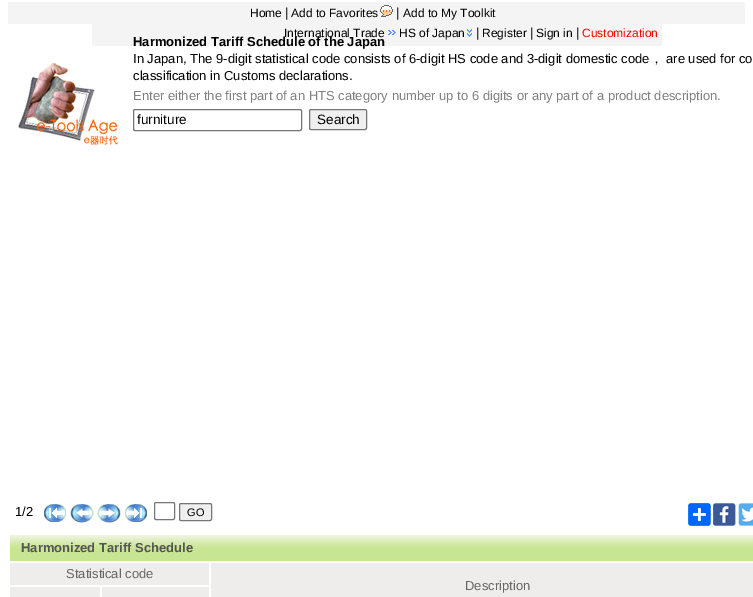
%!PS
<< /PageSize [753 597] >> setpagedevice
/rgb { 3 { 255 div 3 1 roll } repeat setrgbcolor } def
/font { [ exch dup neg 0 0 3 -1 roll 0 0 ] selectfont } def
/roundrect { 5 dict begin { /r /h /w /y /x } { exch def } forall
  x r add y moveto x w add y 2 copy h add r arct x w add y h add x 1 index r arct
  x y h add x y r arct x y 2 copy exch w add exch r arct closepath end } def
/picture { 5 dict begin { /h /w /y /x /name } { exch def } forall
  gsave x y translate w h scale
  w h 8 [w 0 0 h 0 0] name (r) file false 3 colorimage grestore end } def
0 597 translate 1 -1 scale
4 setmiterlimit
255 255 255 rgb
0 0 753 597 rectfill
244 244 244 rgb
8 2 737 22 rectfill
(img/1.rgb) 380 5 13 12 picture
92 24 570 22 rectfill
(img/2.rgb) 388 30 8 5 picture
(img/3.rgb) 467 29 5 8 picture
(img/4.rgb) 18 63 100 82 picture
118 118 118 rgb
133.5 109.5 168 21 1.5 roundrect stroke
239 239 239 rgb
309.5 109.5 57 20 1.5 roundrect gsave fill grestore
118 118 118 rgb
stroke
(img/5.rgb) 44 504 22 18 picture
(img/6.rgb) 70 504 24 19 picture
(img/7.rgb) 97 504 24 19 picture
(img/8.rgb) 125 504 22 18 picture
154.5 502.5 20 17 1.5 roundrect stroke
239 239 239 rgb
179.5 503.5 32 17 1.5 roundrect gsave fill grestore
118 118 118 rgb
stroke
(img/9.rgb) 688 503 23 23 picture
(img/10.rgb) 713 503 23 23 picture
(img/11.rgb) 738 503 15 23 picture
(img/12.rgb) 10 535 743 26 picture
[
  [10 563 199 22 239 237 236]
  [211 563 542 34 239 237 236]
  [10 587 90 10 239 237 236]
  [102 587 107 10 239 237 236]
] { aload pop rgb rectfill } forall
/LiberationSans-Regular 12 font
0 0 0 rgb
250 17 moveto (Home) show
/LiberationSans-Regular 13 font
285 17 moveto (|) show
/LiberationSans-Regular 12 font
291 17 moveto (Add to Favorites) show
/LiberationSans-Regular 13 font
396 17 moveto (|) show
/LiberationSans-Regular 12 font
[
  [(Add to My Toolkit) 403 17]
  [(International Trade) 284 37]
  [(HS of Japan) 399 37]
] { aload pop moveto show } forall
/LiberationSans-Regular 13 font
476 37 moveto (|) show
/LiberationSans-Regular 12 font
482 37 moveto (Register) show
/LiberationSans-Regular 13 font
530 37 moveto (|) show
/LiberationSans-Regular 12 font
536 37 moveto (Sign in) show
/LiberationSans-Regular 13 font
576 37 moveto (|) show
/LiberationSans-Regular 12 font
255 0 0 rgb
582 37 moveto (Customization) show
/LiberationSans-Bold 13 font
0 0 0 rgb
133 46 moveto (Harmonized Tariff Schedule of the Japan) show
/LiberationSans-Regular 13 font
133 63 moveto (In Japan, The 9-digit statistical code consists of 6-digit HS code and 3-digit domestic code) show
/WenQuanYiZenHei-Medium 13 font
650 63 moveto (，) show
/LiberationSans-Regular 13 font
666 63 moveto (are used for co) show
133 80 moveto (classification in Customs declarations.) show
128 128 128 rgb
133 100 moveto (Enter either the first part of an HTS category number up to 6 digits or any part of a product description.) show
/LiberationSans-Regular 13.5 font
0 0 0 rgb
137 124 moveto (furniture) show
317 124 moveto (Search) show
/LiberationSans-Regular 13 font
15 516 moveto (1/2) show
/LiberationSans-Regular 11 font
187 516 moveto (GO) show
/LiberationSans-Bold 13 font
85 85 85 rgb
21 552 moveto (Harmonized Tariff Schedule) show
/LiberationSans-Regular 13 font
102 102 102 rgb
66 578 moveto (Statistical code) show
465 590 moveto (Description) show
showpage
